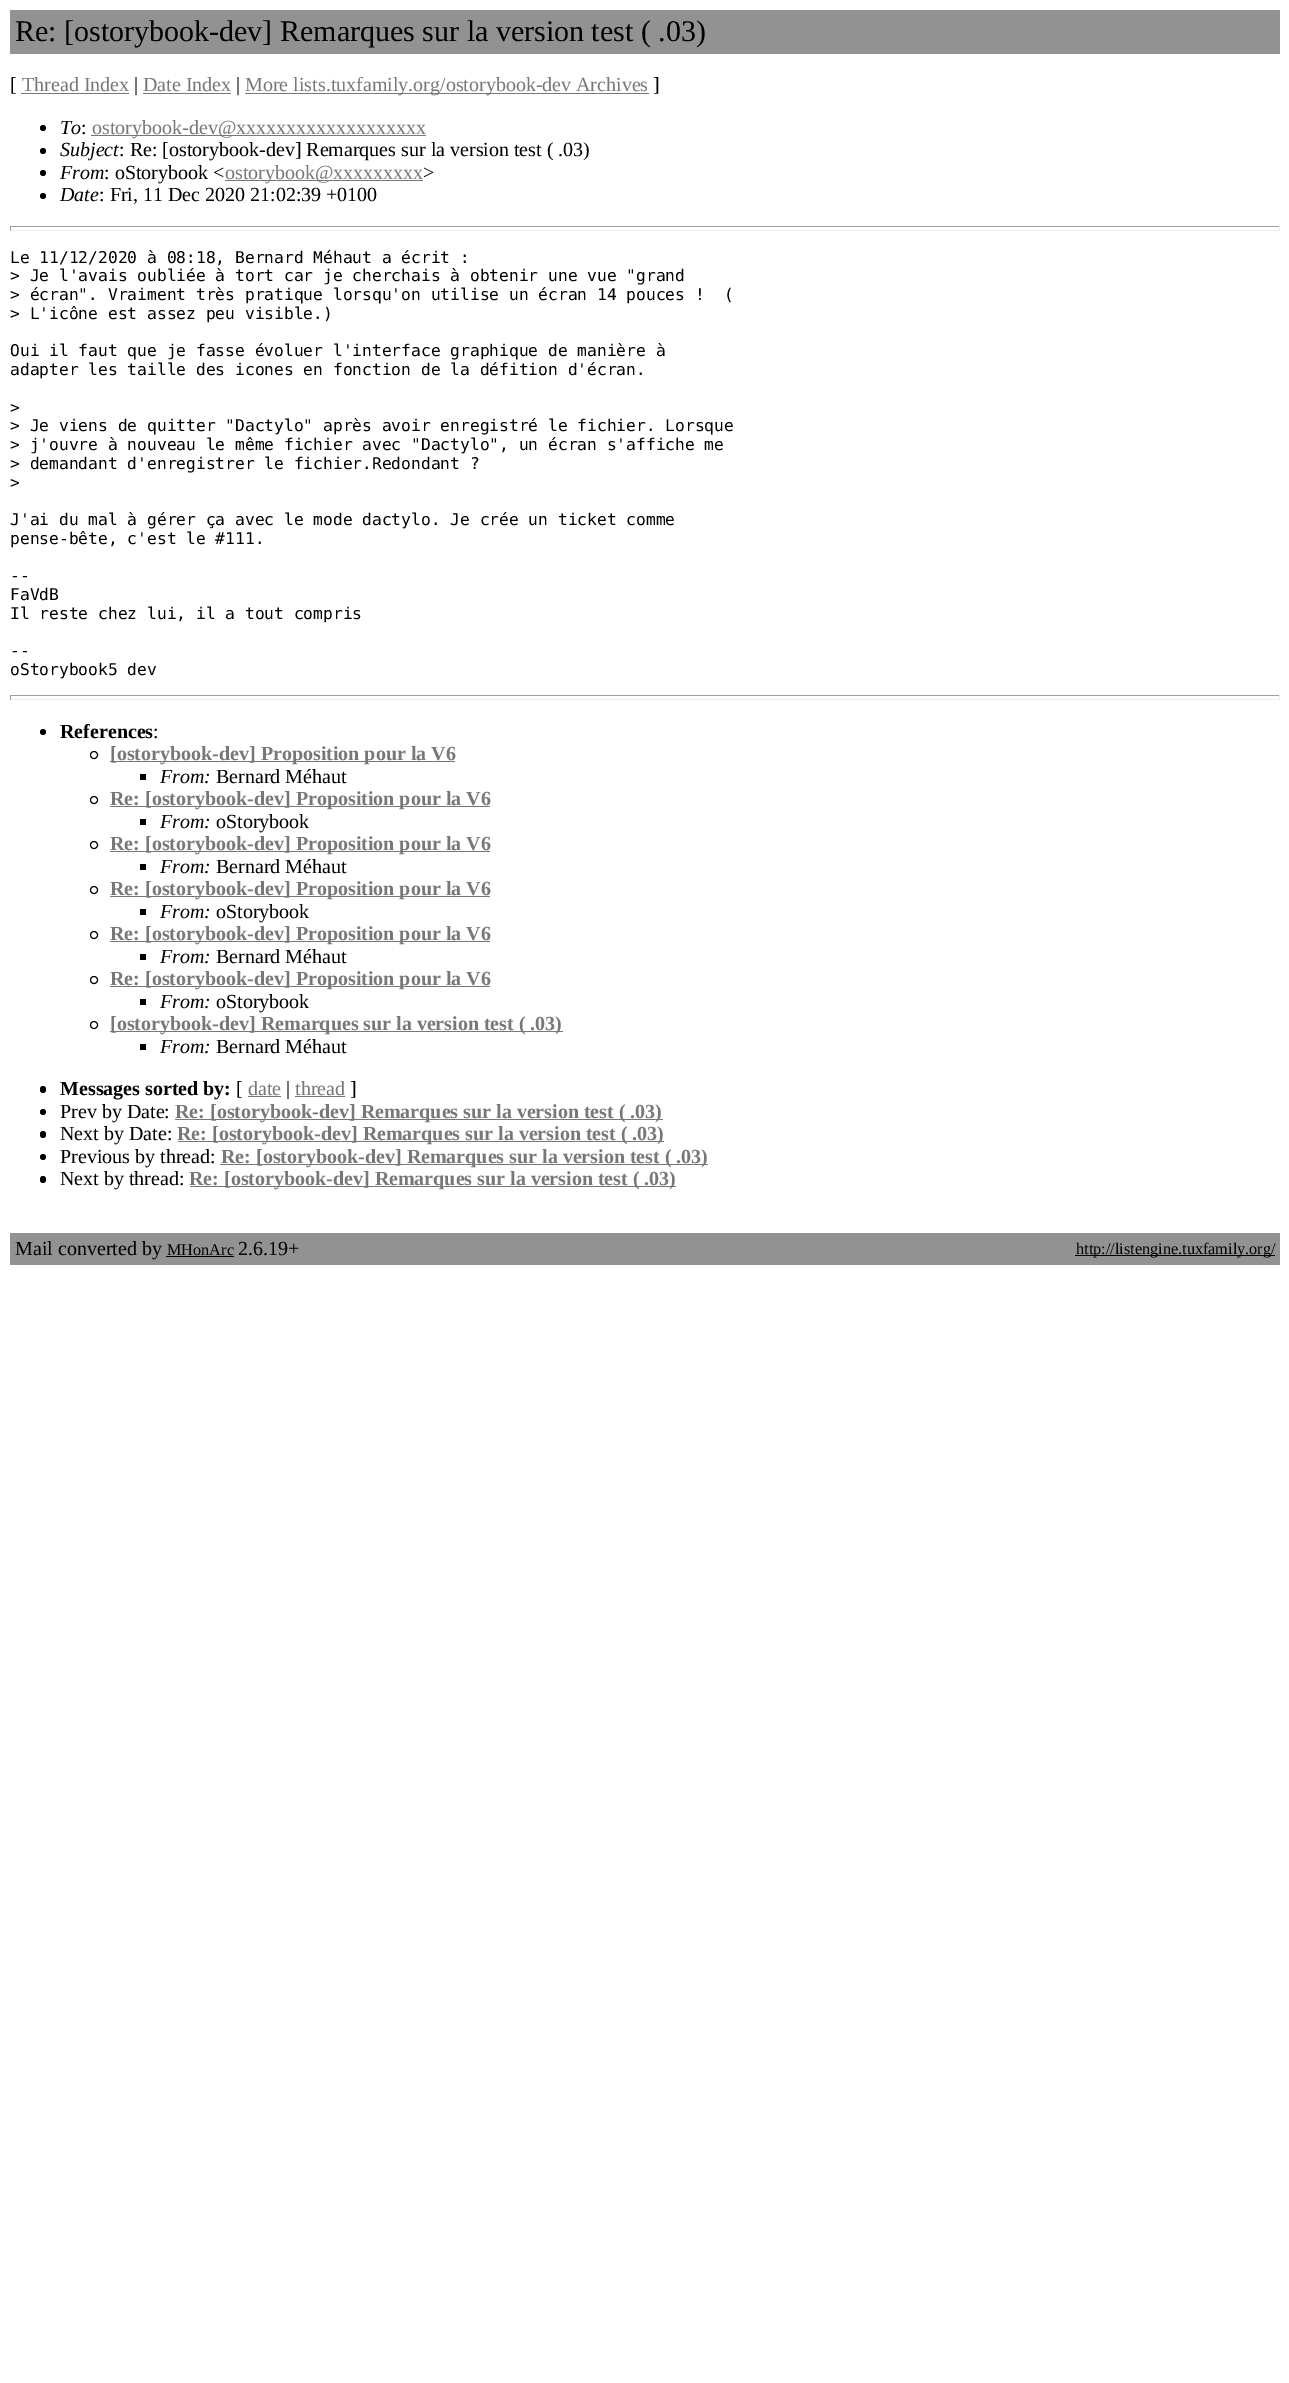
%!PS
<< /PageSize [1289 2383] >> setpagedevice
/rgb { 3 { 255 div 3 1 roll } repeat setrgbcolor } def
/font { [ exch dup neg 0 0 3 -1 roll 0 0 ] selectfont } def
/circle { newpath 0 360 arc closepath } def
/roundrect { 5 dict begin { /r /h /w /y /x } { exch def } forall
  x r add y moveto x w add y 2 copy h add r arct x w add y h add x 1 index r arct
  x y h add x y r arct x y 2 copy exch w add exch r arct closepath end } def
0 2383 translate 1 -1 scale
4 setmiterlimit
255 255 255 rgb
0 0 1289 2383 rectfill
[
  [10 10 1270 44 146 146 146]
  [21 93 108 1 119 119 119]
  [143 93 88 1 119 119 119]
  [245 93 404 1 119 119 119]
] { aload pop rgb rectfill } forall
0 0 0 rgb
43 128 3 circle fill
119 119 119 rgb
91 135 335 1 rectfill
0 0 0 rgb
43 151 3 circle fill
43 173 3 circle fill
119 119 119 rgb
225 180 198 1 rectfill
0 0 0 rgb
43 196 3 circle fill
[
  [10 226 1270 1 159 159 159]
  [1279 226 1 5 238 238 238]
  [10 230 1270 1 238 238 238]
  [10 226 1 5 159 159 159]
  [10 695 1270 1 159 159 159]
  [1279 695 1 5 238 238 238]
  [10 699 1270 1 238 238 238]
  [10 695 1 5 159 159 159]
] { aload pop rgb rectfill } forall
0 0 0 rgb
43 732 3 circle fill
94 755 3.5 circle stroke
119 119 119 rgb
110 761 345 1 rectfill
0 0 0 rgb
140 774 6 6 rectfill
94 800 3.5 circle stroke
119 119 119 rgb
110 806 380 1 rectfill
0 0 0 rgb
140 819 6 6 rectfill
94 845 3.5 circle stroke
119 119 119 rgb
110 851 380 1 rectfill
0 0 0 rgb
140 864 6 6 rectfill
94 890 3.5 circle stroke
119 119 119 rgb
110 896 380 1 rectfill
0 0 0 rgb
140 909 6 6 rectfill
94 935 3.5 circle stroke
119 119 119 rgb
110 941 380 1 rectfill
0 0 0 rgb
140 954 6 6 rectfill
94 980 3.5 circle stroke
119 119 119 rgb
110 986 380 1 rectfill
0 0 0 rgb
140 999 6 6 rectfill
94 1025 3.5 circle stroke
119 119 119 rgb
110 1031 453 1 rectfill
0 0 0 rgb
140 1044 6 6 rectfill
40 1086 6 7 3 roundrect fill
119 119 119 rgb
248 1096 33 1 rectfill
295 1096 50 1 rectfill
0 0 0 rgb
43 1112 3 circle fill
119 119 119 rgb
175 1119 488 1 rectfill
0 0 0 rgb
40 1131 6 7 3 roundrect fill
119 119 119 rgb
178 1141 486 1 rectfill
0 0 0 rgb
43 1157 3 circle fill
119 119 119 rgb
220 1164 488 1 rectfill
0 0 0 rgb
40 1176 6 7 3 roundrect fill
[
  [190 1186 486 1 119 119 119]
  [10 1233 1270 32 146 146 146]
  [166 1256 68 1 0 0 0]
  [1075 1255 200 1 0 0 0]
] { aload pop rgb rectfill } forall
/LiberationSerif-Regular 30 font
15 41 moveto (Re: [ostorybook-dev] Remarques sur la version test \( .03\)) show
/LiberationSerif-Regular 20 font
10 91 moveto ([) show
119 119 119 rgb
22 91 moveto (Thread Index) show
0 0 0 rgb
134 91 moveto (|) show
119 119 119 rgb
143 91 moveto (Date Index) show
0 0 0 rgb
236 91 moveto (|) show
119 119 119 rgb
245 91 moveto (More lists.tuxfamily.org/ostorybook-dev Archives) show
0 0 0 rgb
653 91 moveto (]) show
/LiberationSerif-Italic 20 font
60 134 moveto (To) show
/LiberationSerif-Regular 20 font
81 134 moveto (:) show
119 119 119 rgb
92 134 moveto (ostorybook-dev@xxxxxxxxxxxxxxxxxxx) show
/LiberationSerif-Italic 20 font
0 0 0 rgb
60 156 moveto (Subject) show
/LiberationSerif-Regular 20 font
119 156 moveto (: Re: [ostorybook-dev] Remarques sur la version test \( .03\)) show
/LiberationSerif-Italic 20 font
60 179 moveto (From) show
/LiberationSerif-Regular 20 font
104 179 moveto (: oStorybook <) show
119 119 119 rgb
225 179 moveto (ostorybook@xxxxxxxxx) show
0 0 0 rgb
423 179 moveto (>) show
/LiberationSerif-Italic 20 font
60 201 moveto (Date) show
/LiberationSerif-Regular 20 font
99 201 moveto (: Fri, 11 Dec 2020 21:02:39 +0100) show
/DejaVuSansMono-Regular 16.25 font
[
  [(Le 11/12/2020 à 08:18, Bernard Méhaut a écrit :) 10 263]
  [(> Je l'avais oubliée à tort car je cherchais à obtenir une vue "grand) 10 281]
  [(> écran". Vraiment très pratique lorsqu'on utilise un écran 14 pouces !  \() 10 300]
  [(> L'icône est assez peu visible.\)) 10 319]
  [(Oui il faut que je fasse évoluer l'interface graphique de manière à) 10 356]
  [(adapter les taille des icones en fonction de la défition d'écran.) 10 375]
  [(>) 10 413]
  [(> Je viens de quitter "Dactylo" après avoir enregistré le fichier. Lorsque) 10 431]
  [(> j'ouvre à nouveau le même fichier avec "Dactylo", un écran s'affiche me) 10 450]
  [(> demandant d'enregistrer le fichier.Redondant ?) 10 469]
  [(>) 10 488]
  [(J'ai du mal à gérer ça avec le mode dactylo. Je crée un ticket comme) 10 525]
  [(pense-bête, c'est le #111.) 10 544]
  [(--) 10 581]
  [(FaVdB) 10 600]
  [(Il reste chez lui, il a tout compris) 10 619]
  [(--) 10 656]
  [(oStorybook5 dev) 10 675]
] { aload pop moveto show } forall
/LiberationSerif-Bold 20 font
60 738 moveto (References) show
/LiberationSerif-Regular 20 font
153 738 moveto (:) show
/LiberationSerif-Bold 20 font
119 119 119 rgb
110 760 moveto ([ostorybook-dev] Proposition pour la V6) show
/LiberationSerif-Italic 20 font
0 0 0 rgb
160 783 moveto (From:) show
/LiberationSerif-Regular 20 font
216 783 moveto (Bernard Méhaut) show
/LiberationSerif-Bold 20 font
119 119 119 rgb
110 805 moveto (Re: [ostorybook-dev] Proposition pour la V6) show
/LiberationSerif-Italic 20 font
0 0 0 rgb
160 828 moveto (From:) show
/LiberationSerif-Regular 20 font
216 828 moveto (oStorybook) show
/LiberationSerif-Bold 20 font
119 119 119 rgb
110 850 moveto (Re: [ostorybook-dev] Proposition pour la V6) show
/LiberationSerif-Italic 20 font
0 0 0 rgb
160 873 moveto (From:) show
/LiberationSerif-Regular 20 font
216 873 moveto (Bernard Méhaut) show
/LiberationSerif-Bold 20 font
119 119 119 rgb
110 895 moveto (Re: [ostorybook-dev] Proposition pour la V6) show
/LiberationSerif-Italic 20 font
0 0 0 rgb
160 918 moveto (From:) show
/LiberationSerif-Regular 20 font
216 918 moveto (oStorybook) show
/LiberationSerif-Bold 20 font
119 119 119 rgb
110 940 moveto (Re: [ostorybook-dev] Proposition pour la V6) show
/LiberationSerif-Italic 20 font
0 0 0 rgb
160 963 moveto (From:) show
/LiberationSerif-Regular 20 font
216 963 moveto (Bernard Méhaut) show
/LiberationSerif-Bold 20 font
119 119 119 rgb
110 985 moveto (Re: [ostorybook-dev] Proposition pour la V6) show
/LiberationSerif-Italic 20 font
0 0 0 rgb
160 1008 moveto (From:) show
/LiberationSerif-Regular 20 font
216 1008 moveto (oStorybook) show
/LiberationSerif-Bold 20 font
119 119 119 rgb
110 1030 moveto ([ostorybook-dev] Remarques sur la version test \( .03\)) show
/LiberationSerif-Italic 20 font
0 0 0 rgb
160 1053 moveto (From:) show
/LiberationSerif-Regular 20 font
216 1053 moveto (Bernard Méhaut) show
/LiberationSerif-Bold 20 font
60 1095 moveto (Messages sorted by:) show
/LiberationSerif-Regular 20 font
236 1095 moveto ([) show
119 119 119 rgb
248 1095 moveto (date) show
0 0 0 rgb
286 1095 moveto (|) show
119 119 119 rgb
295 1095 moveto (thread) show
0 0 0 rgb
350 1095 moveto (]) show
60 1118 moveto (Prev by Date:) show
/LiberationSerif-Bold 20 font
119 119 119 rgb
175 1118 moveto (Re: [ostorybook-dev] Remarques sur la version test \( .03\)) show
/LiberationSerif-Regular 20 font
0 0 0 rgb
60 1140 moveto (Next by Date:) show
/LiberationSerif-Bold 20 font
119 119 119 rgb
177 1140 moveto (Re: [ostorybook-dev] Remarques sur la version test \( .03\)) show
/LiberationSerif-Regular 20 font
0 0 0 rgb
60 1163 moveto (Previous by thread:) show
/LiberationSerif-Bold 20 font
119 119 119 rgb
221 1163 moveto (Re: [ostorybook-dev] Remarques sur la version test \( .03\)) show
/LiberationSerif-Regular 20 font
0 0 0 rgb
60 1185 moveto (Next by thread:) show
/LiberationSerif-Bold 20 font
119 119 119 rgb
189 1185 moveto (Re: [ostorybook-dev] Remarques sur la version test \( .03\)) show
/LiberationSerif-Regular 20 font
0 0 0 rgb
15 1255 moveto (Mail converted by) show
/LiberationSerif-Regular 16.25 font
167 1255 moveto (MHonArc) show
/LiberationSerif-Regular 20 font
238 1255 moveto (2.6.19+) show
/LiberationSerif-Regular 16.25 font
1076 1254 moveto (http://listengine.tuxfamily.org/) show
showpage
